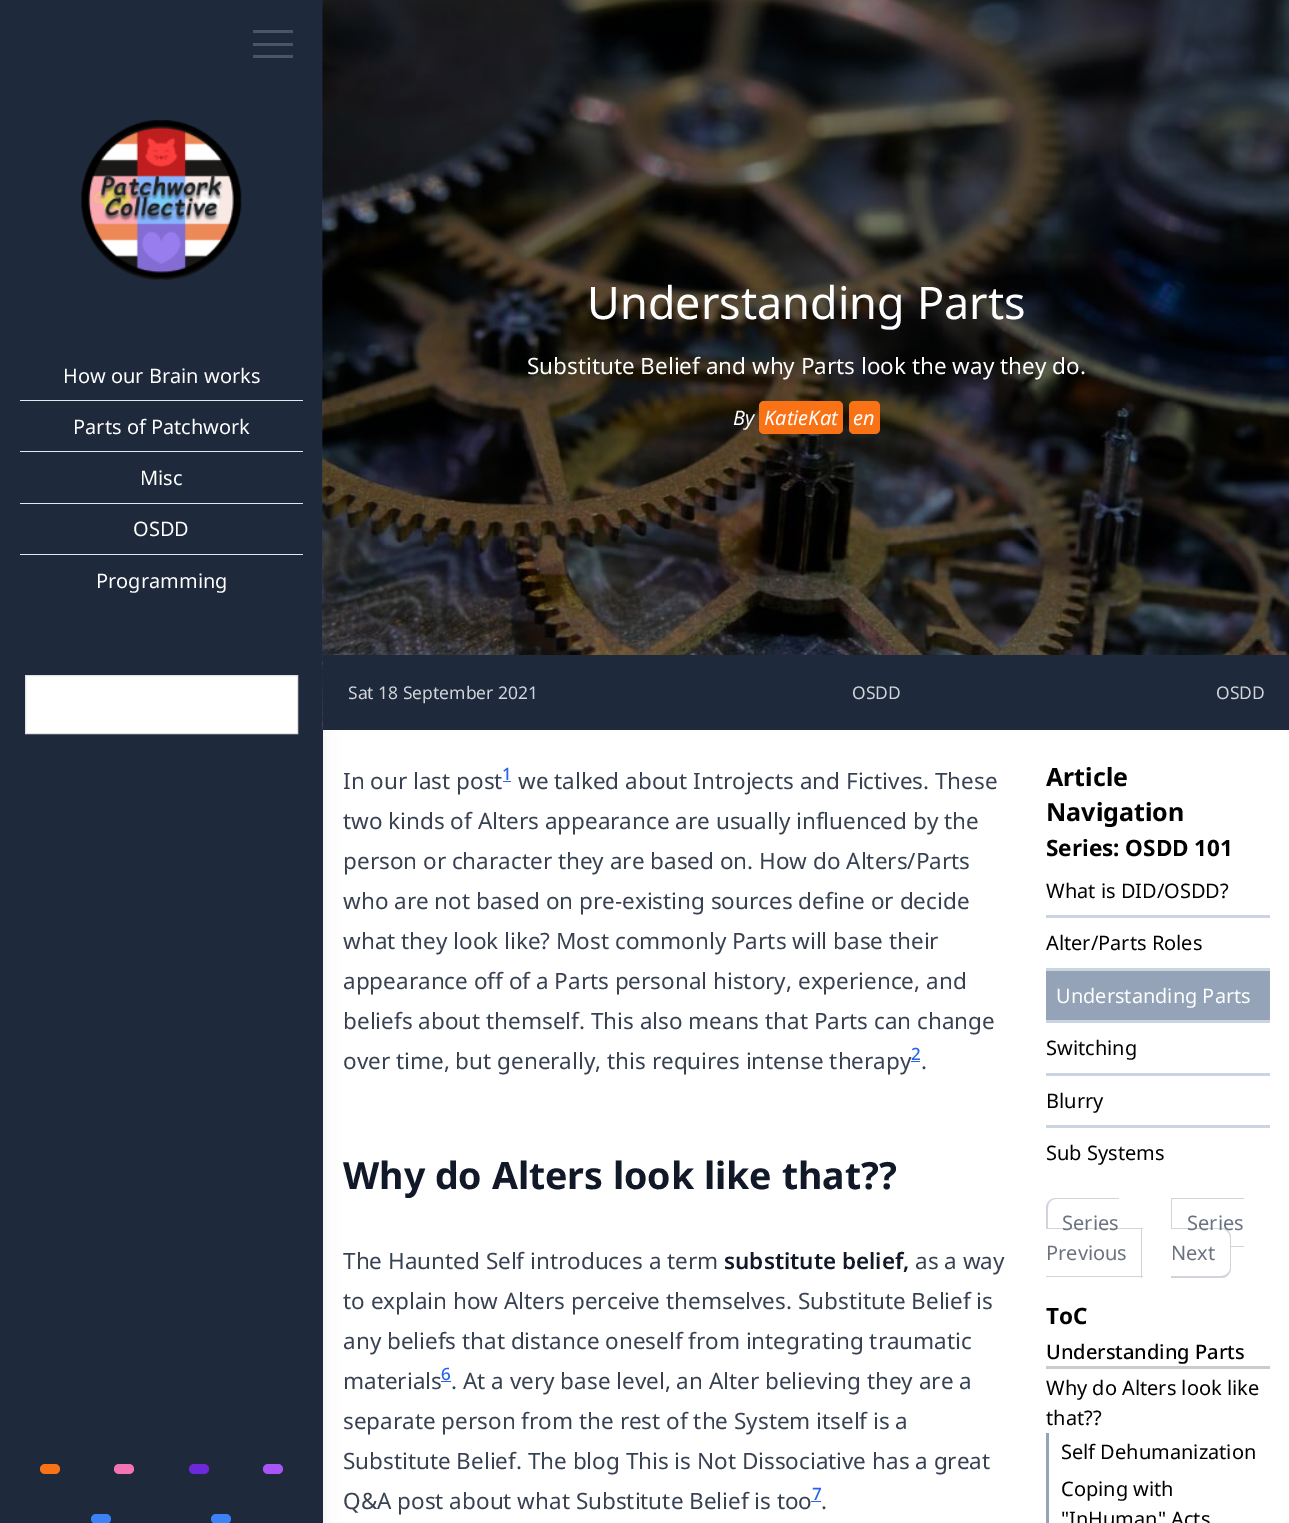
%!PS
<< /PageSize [1289 1523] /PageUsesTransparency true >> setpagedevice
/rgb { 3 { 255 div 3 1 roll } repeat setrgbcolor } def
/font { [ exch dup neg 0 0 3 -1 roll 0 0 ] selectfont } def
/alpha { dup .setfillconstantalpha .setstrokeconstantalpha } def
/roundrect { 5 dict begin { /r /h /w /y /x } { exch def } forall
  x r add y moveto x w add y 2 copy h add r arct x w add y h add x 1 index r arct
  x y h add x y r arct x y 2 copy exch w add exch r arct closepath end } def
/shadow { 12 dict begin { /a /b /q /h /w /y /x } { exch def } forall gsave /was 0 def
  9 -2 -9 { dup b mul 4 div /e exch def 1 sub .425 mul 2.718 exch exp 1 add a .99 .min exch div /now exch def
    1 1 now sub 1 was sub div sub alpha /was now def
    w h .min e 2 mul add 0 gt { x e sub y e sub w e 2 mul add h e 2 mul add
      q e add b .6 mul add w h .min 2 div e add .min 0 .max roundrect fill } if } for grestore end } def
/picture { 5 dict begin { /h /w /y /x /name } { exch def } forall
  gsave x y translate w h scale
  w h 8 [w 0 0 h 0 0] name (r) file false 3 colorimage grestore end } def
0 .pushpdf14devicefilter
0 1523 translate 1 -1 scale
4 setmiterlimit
255 255 255 rgb
0 0 1289 1523 rectfill
0 0 0 rgb
4 16 315 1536 0 9.5 0.1 shadow
[
  [0 0 323 1523 30 41 59]
  [253 30 40 3 75 85 99]
  [253 43 40 3 75 85 99]
  [253 55 40 3 75 85 99]
] { aload pop rgb rectfill } forall
(img/1.rgb) 81 120 161 160 picture
[
  [20 400 283 1 226 232 240]
  [20 451 283 1 226 232 240]
  [20 503 283 1 226 232 240]
  [20 554 283 1 226 232 240]
] { aload pop rgb rectfill } forall
255 255 255 rgb
25.5 675.5 moveto 297.5 675.5 lineto 297.5 733.5 lineto 25.5 733.5 lineto closepath gsave fill grestore
226 226 226 rgb
stroke
249 115 22 rgb
40 1464 20 10 5 roundrect fill
244 114 182 rgb
114 1464 20 10 5 roundrect fill
109 40 217 rgb
189 1464 20 10 5 roundrect fill
168 85 247 rgb
263 1464 20 10 5 roundrect fill
59 130 246 rgb
91 1514 20 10 5 roundrect fill
211 1514 20 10 5 roundrect fill
(img/2.rgb) 322 0 967 730 picture
249 115 22 rgb
759 401 84 33 5 roundrect fill
849 401 31 33 5 roundrect fill
[
  [323 655 966 75 30 41 59]
  [503 781 8 1 37 99 235]
  [911 1061 9 1 37 99 235]
  [441 1381 10 1 37 99 235]
  [811 1501 10 1 37 99 235]
  [1046 915 224 3 203 213 225]
  [1046 971 224 49 148 163 184]
  [1046 968 224 3 203 213 225]
  [1046 1020 224 3 203 213 225]
  [1046 1073 224 3 203 213 225]
  [1046 1125 224 3 203 213 225]
] { aload pop rgb rectfill } forall
209 213 219 rgb
1056 1198 moveto 1119 1198 lineto 1119 1248 lineto 1056 1248 lineto 1051 1248 1046 1243 1046 1238 curveto 1046 1208 lineto 1046 1202 1051 1198 1056 1198 curveto closepath 1056 1199 moveto 1119 1199 lineto 1119 1246 lineto 1056 1246 lineto 1051 1246 1048 1242 1048 1238 curveto 1048 1208 lineto 1048 1203 1051 1199 1056 1199 curveto closepath eofill
[
  [1046 1228 97 1 209 213 219]
  [1046 1229 73 19 255 255 255]
  [1141 1228 1 50 209 213 219]
  [1046 1276 97 1 209 213 219]
  [1171 1198 73 1 209 213 219]
  [1171 1198 1 30 209 213 219]
  [1231 1246 13 1 209 213 219]
] { aload pop rgb rectfill } forall
1171 1228 moveto 1221 1228 lineto 1227 1228 1231 1232 1231 1238 curveto 1231 1268 lineto 1231 1273 1227 1278 1221 1278 curveto 1171 1278 lineto closepath 1171 1229 moveto 1221 1229 lineto 1226 1229 1230 1233 1230 1238 curveto 1230 1268 lineto 1230 1272 1226 1276 1221 1276 curveto 1171 1276 lineto closepath eofill
204 204 204 rgb
1046 1366 224 3 rectfill
148 163 184 rgb
1046 1433 3 90 rectfill
/NotoSans-Regular 20 font
255 255 255 rgb
[
  [(How our Brain works) 63 383]
  [(Parts of Patchwork) 73 434]
  [(Misc) 140 485]
  [(OSDD) 133 536]
  [(Programming) 96 588]
] { aload pop moveto show } forall
/NotoSans-Regular 45 font
587 319 moveto (Understanding Parts) show
/NotoSans-Regular 22.5 font
527 374 moveto (Substitute Belief and why Parts look the way they do.) show
/NotoSans-Italic 20 font
[
  [(By) 733 425]
  [(KatieKat) 764 425]
  [(en) 853 425]
] { aload pop moveto show } forall
/NotoSans-Regular 17.5 font
209 213 219 rgb
[
  [(Sat 18 September 2021) 348 699]
  [(OSDD) 852 699]
  [(OSDD) 1216 699]
] { aload pop moveto show } forall
/NotoSans-Regular 22.5 font
55 65 81 rgb
343 789 moveto (In our last post) show
/NotoSans-Medium 17 font
37 99 235 rgb
502 780 moveto (1) show
/NotoSans-Regular 22.5 font
55 65 81 rgb
[
  [(we talked about Introjects and Fictives. These) 518 789]
  [(two kinds of Alters appearance are usually influenced by the) 343 829]
  [(person or character they are based on. How do Alters/Parts) 343 869]
  [(who are not based on pre-existing sources define or decide) 343 909]
  [(what they look like? Most commonly Parts will base their) 343 949]
  [(appearance off of a Parts personal history, experience, and) 343 989]
  [(beliefs about themself. This also means that Parts can change) 343 1029]
  [(over time, but generally, this requires intense therapy) 343 1069]
] { aload pop moveto show } forall
/NotoSans-Medium 17 font
37 99 235 rgb
911 1060 moveto (2) show
/NotoSans-Regular 22.5 font
55 65 81 rgb
921 1069 moveto (.) show
/NotoSans-Bold 37.5 font
17 24 39 rgb
343 1189 moveto (Why do Alters look like that??) show
/NotoSans-Regular 22.5 font
55 65 81 rgb
343 1269 moveto (The Haunted Self introduces a term) show
/NotoSans-SemiBold 22.5 font
17 24 39 rgb
724 1269 moveto (substitute belief,) show
/NotoSans-Regular 22.5 font
55 65 81 rgb
[
  [(as a way) 915 1269]
  [(to explain how Alters perceive themselves. Substitute Belief is) 343 1309]
  [(any beliefs that distance oneself from integrating traumatic) 343 1349]
  [(materials) 343 1389]
] { aload pop moveto show } forall
/NotoSans-Medium 17 font
37 99 235 rgb
441 1380 moveto (6) show
/NotoSans-Regular 22.5 font
55 65 81 rgb
[
  [(. At a very base level, an Alter believing they are a) 451 1389]
  [(separate person from the rest of the System itself is a) 343 1429]
  [(Substitute Belief. The blog This is Not Dissociative has a great) 343 1469]
  [(Q&A post about what Substitute Belief is too) 343 1509]
] { aload pop moveto show } forall
/NotoSans-Medium 17 font
37 99 235 rgb
812 1500 moveto (7) show
/NotoSans-Regular 22.5 font
55 65 81 rgb
821 1509 moveto (.) show
/NotoSans-Bold 25 font
0 0 0 rgb
1046 786 moveto (Article) show
1046 821 moveto (Navigation) show
/NotoSans-Bold 22.5 font
1046 856 moveto (Series: OSDD 101) show
/NotoSans-Regular 20 font
1046 898 moveto (What is DID/OSDD?) show
1046 950 moveto (Alter/Parts Roles) show
255 255 255 rgb
1056 1003 moveto (Understanding Parts) show
0 0 0 rgb
[
  [(Switching) 1046 1055]
  [(Blurry) 1046 1108]
  [(Sub Systems) 1046 1160]
] { aload pop moveto show } forall
107 114 128 rgb
[
  [(Series) 1062 1230]
  [(Previous) 1046 1260]
  [(Series) 1187 1230]
  [(Next) 1171 1260]
] { aload pop moveto show } forall
/NotoSans-Bold 22.5 font
0 0 0 rgb
1046 1324 moveto (ToC) show
/NotoSans-Medium 20 font
1046 1359 moveto (Understanding Parts) show
/NotoSans-Regular 20 font
[
  [(Why do Alters look like) 1046 1395]
  [(that??) 1046 1425]
  [(Self Dehumanization) 1061 1459]
  [(Coping with) 1061 1496]
  [("InHuman" Acts) 1061 1526]
] { aload pop moveto show } forall
.poppdf14devicefilter showpage
